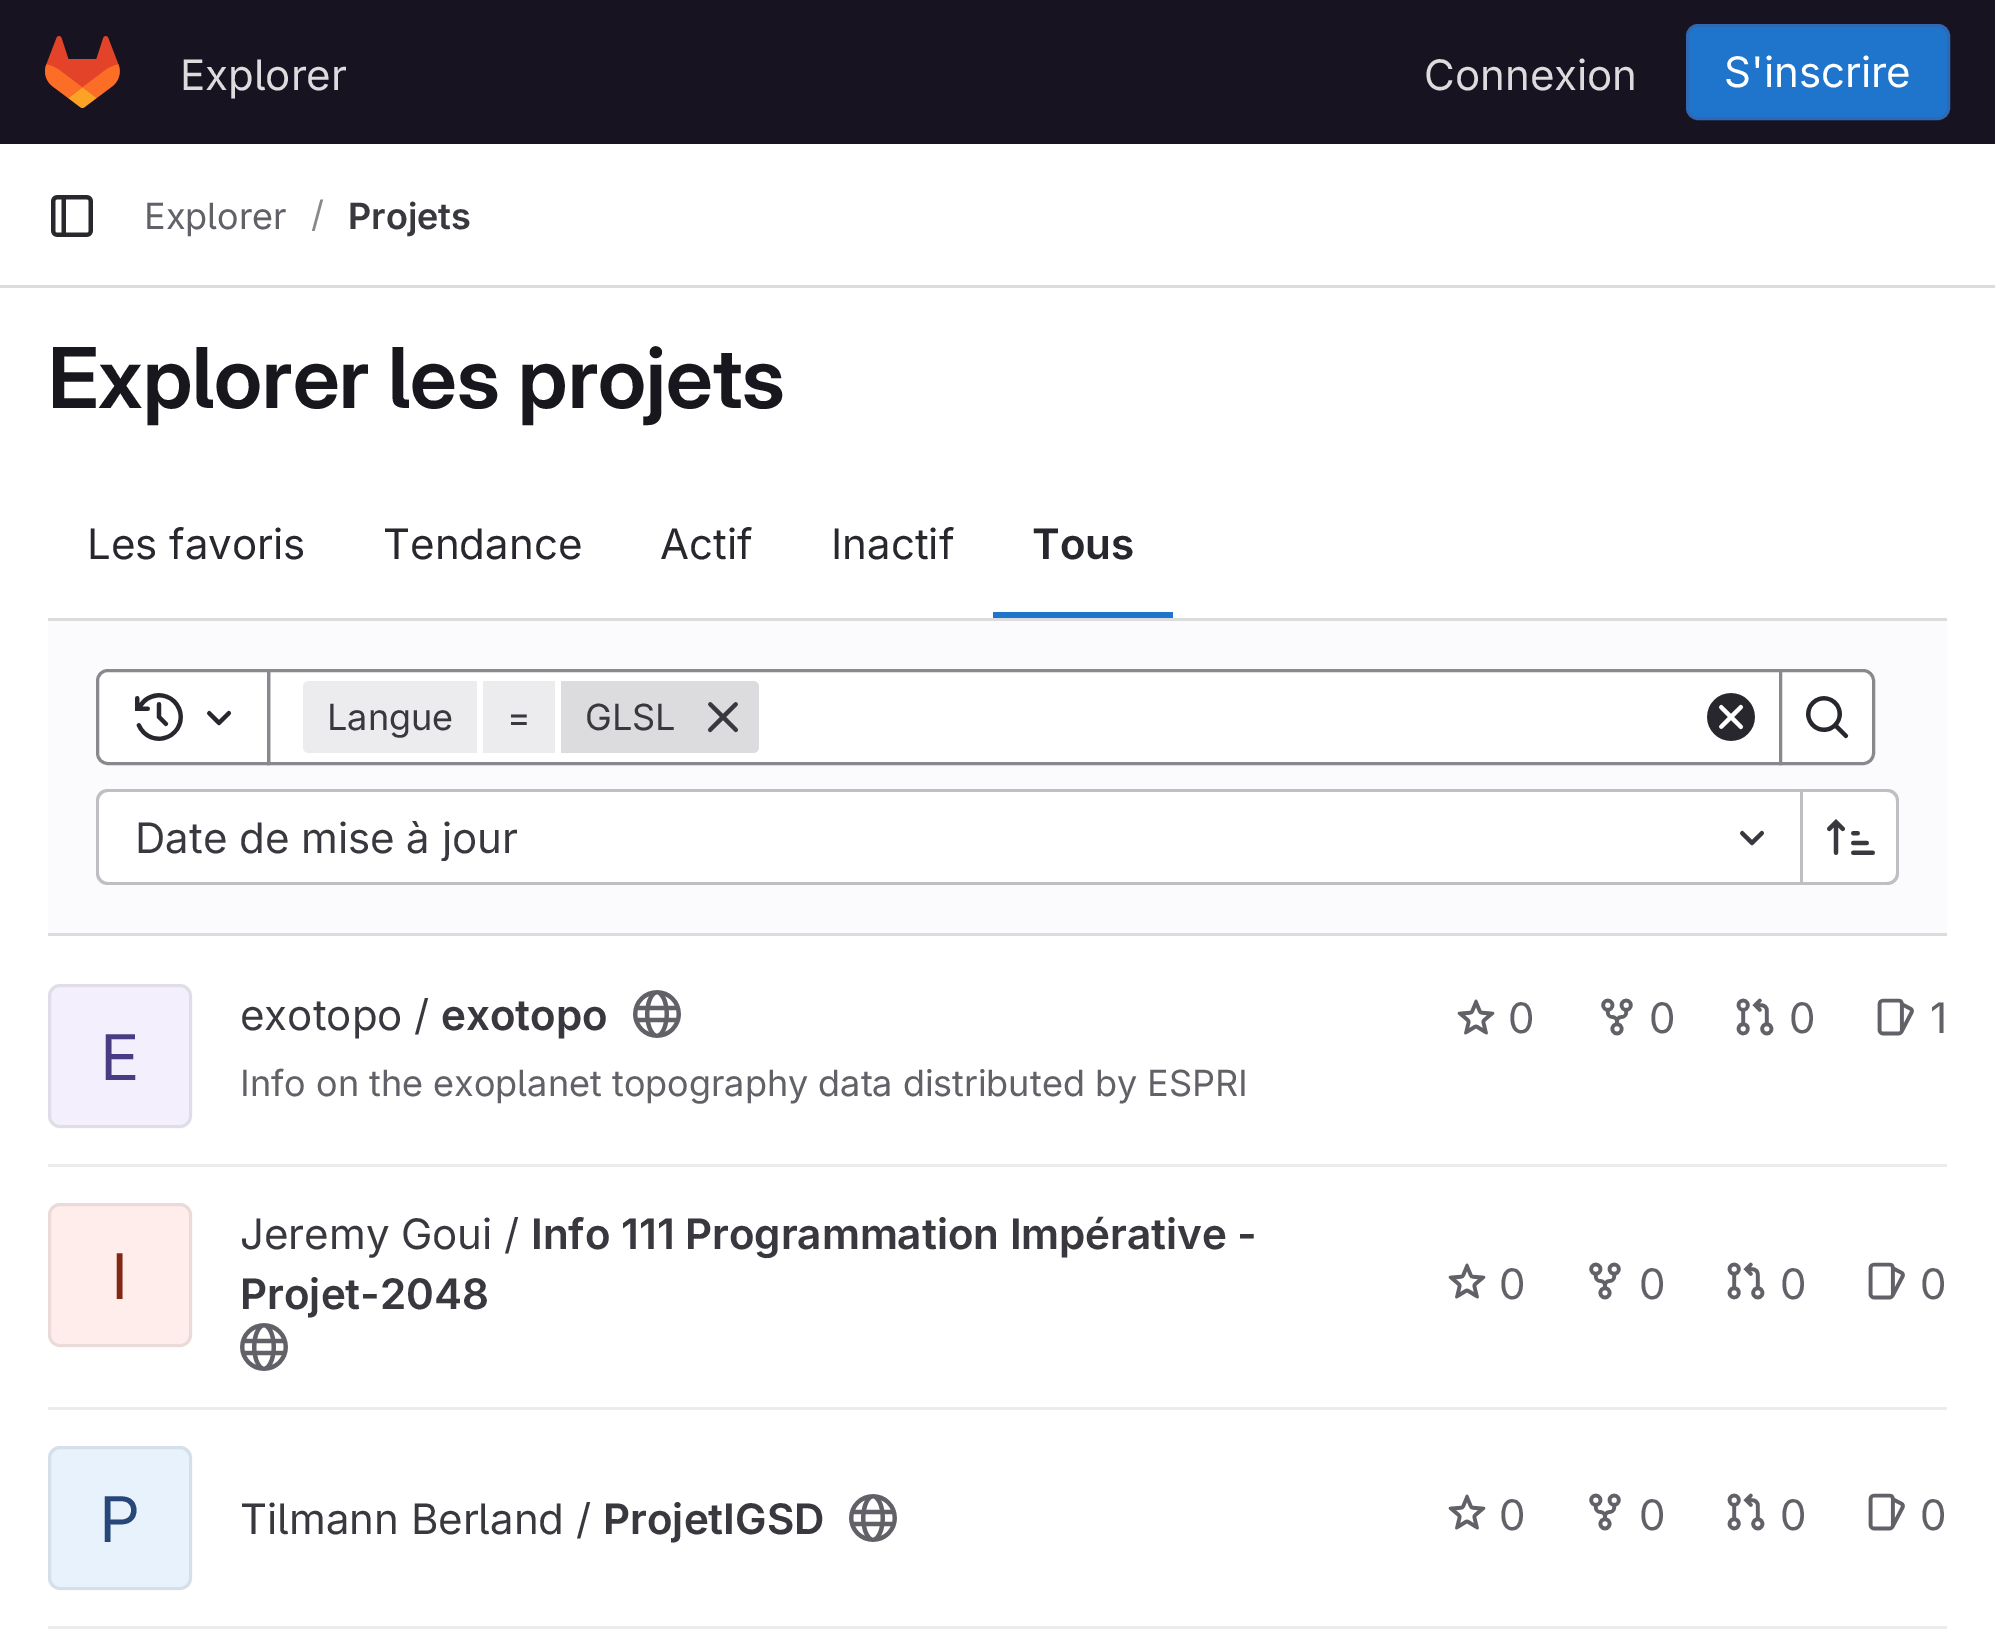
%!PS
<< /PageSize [1995 1649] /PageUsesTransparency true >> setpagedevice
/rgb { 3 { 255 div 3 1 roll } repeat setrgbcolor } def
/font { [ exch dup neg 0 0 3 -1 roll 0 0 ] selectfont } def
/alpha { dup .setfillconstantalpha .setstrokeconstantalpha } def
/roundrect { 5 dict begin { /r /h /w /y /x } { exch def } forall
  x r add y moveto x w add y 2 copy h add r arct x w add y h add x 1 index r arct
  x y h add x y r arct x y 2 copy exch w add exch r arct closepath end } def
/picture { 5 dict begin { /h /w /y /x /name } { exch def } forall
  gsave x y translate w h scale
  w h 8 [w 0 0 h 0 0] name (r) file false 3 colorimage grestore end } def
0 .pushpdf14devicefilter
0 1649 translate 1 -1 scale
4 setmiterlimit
255 255 255 rgb
0 0 1995 1649 rectfill
23 19 33 rgb
0 0 1995 144 rectfill
(img/1.rgb) 45 36 75 72 picture
31 117 203 rgb
1687.5 25.5 261 93 10.5 roundrect gsave fill grestore
47 104 180 rgb
3 setlinewidth
stroke
220 220 222 rgb
0 285 1995 3 rectfill
(img/2.rgb) 51 195 42 42 picture
[
  [993 612 180 6 31 117 203]
  [48 621 1899 312 251 250 253]
  [48 618 1899 3 220 220 222]
  [48 933 1899 3 220 220 222]
] { aload pop rgb rectfill } forall
255 255 255 rgb
268.5 670.5 moveto 1780.5 670.5 lineto 1780.5 763.5 lineto 268.5 763.5 lineto closepath gsave fill grestore
137 136 141 rgb
stroke
255 255 255 rgb
108 670.5 moveto 268.5 670.5 lineto 268.5 763.5 lineto 108 763.5 lineto 102 763.5 97.5 759 97.5 753 curveto 97.5 681 lineto 97.5 675 102 670.5 108 670.5 curveto closepath gsave fill grestore
137 136 141 rgb
stroke
(img/3.rgb) 135 693 48 48 picture
(img/4.rgb) 206 710 26 16 picture
236 236 239 rgb
309 681 moveto 477 681 lineto 477 753 lineto 309 753 lineto 305.5 753 303 750.5 303 747 curveto 303 687 lineto 303 683.5 305.5 681 309 681 curveto closepath fill
483 681 72 72 rectfill
220 220 222 rgb
561 681 moveto 753 681 lineto 756.5 681 759 683.5 759 687 curveto 759 747 lineto 759 750.5 756.5 753 753 753 curveto 561 753 lineto closepath fill
(img/5.rgb) 707 702 32 31 picture
(img/6.rgb) 1707 693 48 48 picture
255 255 255 rgb
1780.5 670.5 moveto 1863 670.5 lineto 1869 670.5 1873.5 675 1873.5 681 curveto 1873.5 753 lineto 1873.5 759 1869 763.5 1863 763.5 curveto 1780.5 763.5 lineto closepath gsave fill grestore
137 136 141 rgb
stroke
(img/7.rgb) 1806 696 43 43 picture
255 255 255 rgb
108 792 moveto 1800 792 lineto 1800 882 lineto 108 882 lineto 103 882 99 878 99 873 curveto 99 801 lineto 99 796 103 792 108 792 curveto closepath fill
191 191 195 rgb
108 789 moveto 1800 789 lineto 1800 885 lineto 108 885 lineto 101 885 96 880 96 873 curveto 96 801 lineto 96 794 101 789 108 789 curveto closepath 108 792 moveto 1800 792 lineto 1800 882 lineto 108 882 lineto 103 882 99 878 99 873 curveto 99 801 lineto 99 796 103 792 108 792 curveto closepath eofill
(img/8.rgb) 1739 830 26 16 picture
255 255 255 rgb
1803 792 moveto 1887 792 lineto 1892 792 1896 796 1896 801 curveto 1896 873 lineto 1896 878 1892 882 1887 882 curveto 1803 882 lineto closepath fill
191 191 195 rgb
1803 789 moveto 1887 789 lineto 1894 789 1899 794 1899 801 curveto 1899 873 lineto 1899 880 1894 885 1887 885 curveto 1803 885 lineto closepath 1803 792 moveto 1887 792 lineto 1892 792 1896 796 1896 801 curveto 1896 873 lineto 1896 878 1892 882 1887 882 curveto 1803 882 lineto closepath eofill
1800 789 3 96 rectfill
(img/9.rgb) 1827 819 48 36 picture
236 236 239 rgb
48 1164 1899 3 rectfill
(img/10.rgb) 633 990 48 48 picture
(img/11.rgb) 1457 999 38 36 picture
(img/12.rgb) 1601 998 32 38 picture
(img/13.rgb) 1736 998 38 38 picture
(img/14.rgb) 1877 998 37 38 picture
243 239 252 rgb
48 984 144 144 12 roundrect fill
0.08 alpha
5 5 6 rgb
49.5 985.5 141 141 10.5 roundrect stroke
1 alpha
236 236 239 rgb
48 1407 1899 3 rectfill
254 237 235 rgb
48 1203 144 144 12 roundrect fill
0.08 alpha
5 5 6 rgb
49.5 1204.5 141 141 10.5 roundrect stroke
1 alpha
(img/15.rgb) 240 1323 48 48 picture
(img/16.rgb) 1448 1263 38 36 picture
(img/17.rgb) 1589 1262 32 38 picture
(img/18.rgb) 1727 1262 38 38 picture
(img/19.rgb) 1868 1262 37 38 picture
236 236 239 rgb
48 1626 1899 3 rectfill
231 242 252 rgb
48 1446 144 144 12 roundrect fill
0.08 alpha
5 5 6 rgb
49.5 1447.5 141 141 10.5 roundrect stroke
1 alpha
(img/20.rgb) 849 1494 48 48 picture
(img/21.rgb) 1448 1494 38 36 picture
(img/22.rgb) 1589 1493 32 38 picture
(img/23.rgb) 1727 1493 38 38 picture
(img/24.rgb) 1868 1493 37 38 picture
/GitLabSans-Regular 42 font
220 220 222 rgb
180 90 moveto (Explorer) show
1424 90 moveto (Connexion) show
255 255 255 rgb
1724 87 moveto (S'inscrire) show
/GitLabSans-Regular 36 font
98 97 104 rgb
144 229 moveto (Explorer) show
137 136 141 rgb
311 227 moveto (/) show
/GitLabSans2-SemiBold 36 font
58 56 63 rgb
348 229 moveto (Projets) show
/GitLabSans-SemiBold 84 font
24 23 29 rgb
48 408 moveto (Explorer les projets) show
/GitLabSans-Regular 42 font
40 39 45 rgb
[
  [(Les favoris) 87 559]
  [(Tendance) 383 559]
  [(Actif) 660 559]
  [(Inactif) 831 559]
] { aload pop moveto show } forall
/GitLabSans2-SemiBold 42 font
1032 559 moveto (Tous) show
/GitLabSans-Regular 36 font
58 56 63 rgb
[
  [(Langue) 327 730]
  [(=) 507 730]
  [(GLSL) 585 730]
] { aload pop moveto show } forall
gsave
135 813 384 48 rectclip
/GitLabSans-Regular 42 font
135 853 moveto (Date de mise à jour) show
grestore
/GitLabSans-Regular 42 font
240 1030 moveto (exotopo /) show
/GitLabSans2-SemiBold 42 font
441 1030 moveto (exotopo) show
/GitLabSans-Regular 36 font
98 97 104 rgb
240 1096 moveto (Info on the exoplanet topography data distributed by ESPRI) show
/GitLabSans-Regular 42 font
[
  [(0) 1508 1033]
  [(0) 1649 1033]
  [(0) 1789 1033]
  [(1) 1930 1033]
] { aload pop moveto show } forall
/GitLabSans2-Regular 63 font
73 60 131 rgb
101 1080 moveto (E) show
129 39 19 rgb
112 1299 moveto (I) show
/GitLabSans-Regular 42 font
58 56 63 rgb
240 1249 moveto (Jeremy Goui /) show
/GitLabSans2-SemiBold 42 font
531 1249 moveto (Info 111 Programmation Impérative -) show
240 1309 moveto (Projet-2048) show
/GitLabSans-Regular 42 font
98 97 104 rgb
[
  [(0) 1499 1299]
  [(0) 1639 1299]
  [(0) 1780 1299]
  [(0) 1920 1299]
] { aload pop moveto show } forall
/GitLabSans2-Regular 63 font
40 71 121 rgb
100 1542 moveto (P) show
/GitLabSans-Regular 42 font
58 56 63 rgb
240 1534 moveto (Tilmann Berland /) show
/GitLabSans2-SemiBold 42 font
603 1534 moveto (ProjetIGSD) show
/GitLabSans-Regular 42 font
98 97 104 rgb
[
  [(0) 1499 1530]
  [(0) 1639 1530]
  [(0) 1780 1530]
  [(0) 1920 1530]
] { aload pop moveto show } forall
.poppdf14devicefilter showpage
